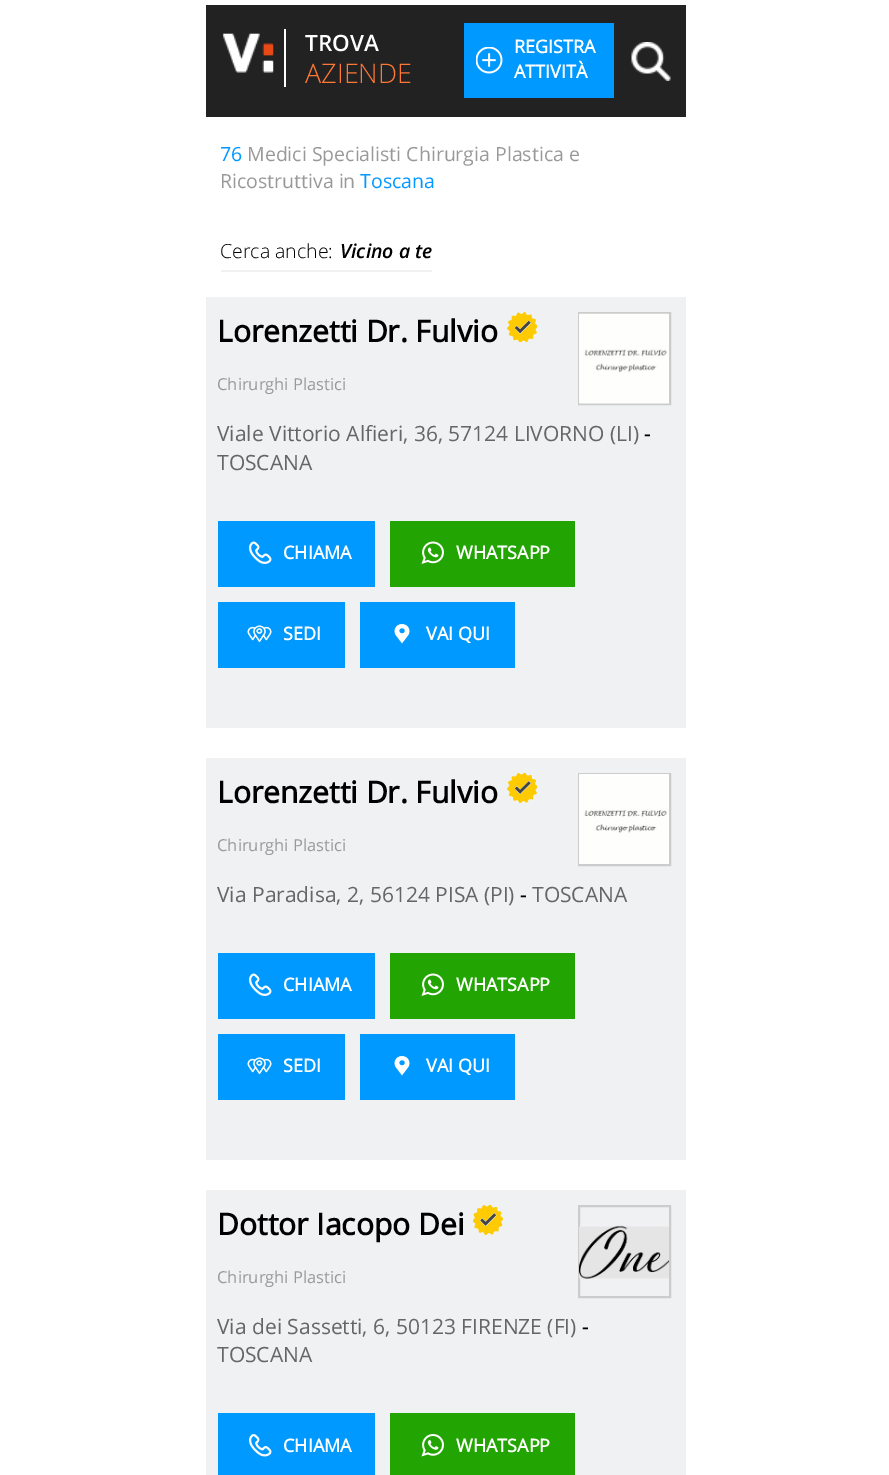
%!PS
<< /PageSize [889 1475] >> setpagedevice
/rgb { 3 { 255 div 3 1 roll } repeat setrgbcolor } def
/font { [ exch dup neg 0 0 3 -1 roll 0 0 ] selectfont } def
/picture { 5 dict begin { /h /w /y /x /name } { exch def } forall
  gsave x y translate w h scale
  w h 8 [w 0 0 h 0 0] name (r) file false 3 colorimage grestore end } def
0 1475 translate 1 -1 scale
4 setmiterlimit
255 255 255 rgb
0 0 889 1475 rectfill
34 34 34 rgb
206 5 480 112 rectfill
(img/1.rgb) 223 33 51 40 picture
255 255 255 rgb
284 29 2 58 rectfill
(img/2.rgb) 631 42 40 39 picture
0 153 255 rgb
464 23 150 75 rectfill
(img/3.rgb) 476 47 27 27 picture
240 241 243 rgb
221 270 211 2 rectfill
206 297 480 431 rectfill
(img/4.rgb) 507 312 30 30 picture
204 204 204 rgb
2 setlinewidth
579 313 91 91 rectstroke
(img/5.rgb) 579 313 90 91 picture
0 153 255 rgb
218 521 157 66 rectfill
(img/6.rgb) 249 541 23 23 picture
34 165 2 rgb
390 521 185 66 rectfill
(img/7.rgb) 421 541 23 23 picture
0 153 255 rgb
218 602 127 66 rectfill
(img/8.rgb) 247 625 25 17 picture
360 602 155 66 rectfill
(img/9.rgb) 394 624 16 20 picture
240 241 243 rgb
206 758 480 402 rectfill
(img/10.rgb) 507 773 30 30 picture
204 204 204 rgb
579 774 91 91 rectstroke
(img/11.rgb) 579 774 90 90 picture
0 153 255 rgb
218 953 157 66 rectfill
(img/6.rgb) 249 973 23 23 picture
34 165 2 rgb
390 953 185 66 rectfill
(img/7.rgb) 421 973 23 23 picture
0 153 255 rgb
218 1034 127 66 rectfill
(img/8.rgb) 247 1057 25 17 picture
360 1034 155 66 rectfill
(img/9.rgb) 394 1056 16 20 picture
240 241 243 rgb
206 1190 480 285 rectfill
(img/12.rgb) 473 1205 30 30 picture
204 204 204 rgb
579 1206 91 91 rectstroke
(img/13.rgb) 579 1225 90 54 picture
0 153 255 rgb
218 1413 157 62 rectfill
(img/14.rgb) 249 1434 23 23 picture
34 165 2 rgb
390 1413 185 62 rectfill
(img/15.rgb) 421 1434 23 23 picture
/OpenSans-SemiBold 22.5 font
255 255 255 rgb
305 51 moveto (TROVA) show
/OpenSans-Light 27 font
255 120 53 rgb
305 83 moveto (AZIENDE) show
/OpenSans-Bold 18 font
255 255 255 rgb
514 53 moveto (REGISTRA) show
514 78 moveto (ATTIVITÀ) show
/OpenSans-Regular 19.5 font
0 153 255 rgb
220 161 moveto (76) show
153 153 153 rgb
247 161 moveto (Medici Specialisti Chirurgia Plastica e) show
220 188 moveto (Ricostruttiva in) show
0 153 255 rgb
360 188 moveto (Toscana) show
/OpenSans-Light 19.5 font
0 0 0 rgb
220 258 moveto (Cerca anche:) show
/OpenSans-SemiBoldItalic 19.5 font
340 258 moveto (Vicino a te) show
/OpenSans-Bold 30 font
217 342 moveto (Lorenzetti Dr. Fulvio) show
/OpenSans-Regular 16.5 font
153 153 153 rgb
217 390 moveto (Chirurghi Plastici) show
/OpenSans-Regular 21 font
102 102 102 rgb
217 441 moveto (Viale Vittorio Alfieri, 36, 57124 LIVORNO \(LI\)) show
0 0 0 rgb
644 441 moveto (-) show
102 102 102 rgb
217 470 moveto (TOSCANA) show
/OpenSans-Bold 18 font
255 255 255 rgb
[
  [(CHIAMA) 283 559]
  [(WHATSAPP) 456 559]
  [(SEDI) 283 640]
  [(VAI QUI) 426 640]
] { aload pop moveto show } forall
/OpenSans-Bold 30 font
0 0 0 rgb
217 803 moveto (Lorenzetti Dr. Fulvio) show
/OpenSans-Regular 16.5 font
153 153 153 rgb
217 851 moveto (Chirurghi Plastici) show
/OpenSans-Regular 21 font
102 102 102 rgb
217 902 moveto (Via Paradisa, 2, 56124 PISA \(PI\)) show
0 0 0 rgb
520 902 moveto (-) show
102 102 102 rgb
532 902 moveto (TOSCANA) show
/OpenSans-Bold 18 font
255 255 255 rgb
[
  [(CHIAMA) 283 991]
  [(WHATSAPP) 456 991]
  [(SEDI) 283 1072]
  [(VAI QUI) 426 1072]
] { aload pop moveto show } forall
/OpenSans-Bold 30 font
0 0 0 rgb
217 1235 moveto (Dottor Iacopo Dei) show
/OpenSans-Regular 16.5 font
153 153 153 rgb
217 1283 moveto (Chirurghi Plastici) show
/OpenSans-Regular 21 font
102 102 102 rgb
217 1334 moveto (Via dei Sassetti, 6, 50123 FIRENZE \(FI\)) show
0 0 0 rgb
582 1334 moveto (-) show
102 102 102 rgb
217 1362 moveto (TOSCANA) show
/OpenSans-Bold 18 font
255 255 255 rgb
283 1452 moveto (CHIAMA) show
456 1452 moveto (WHATSAPP) show
showpage
